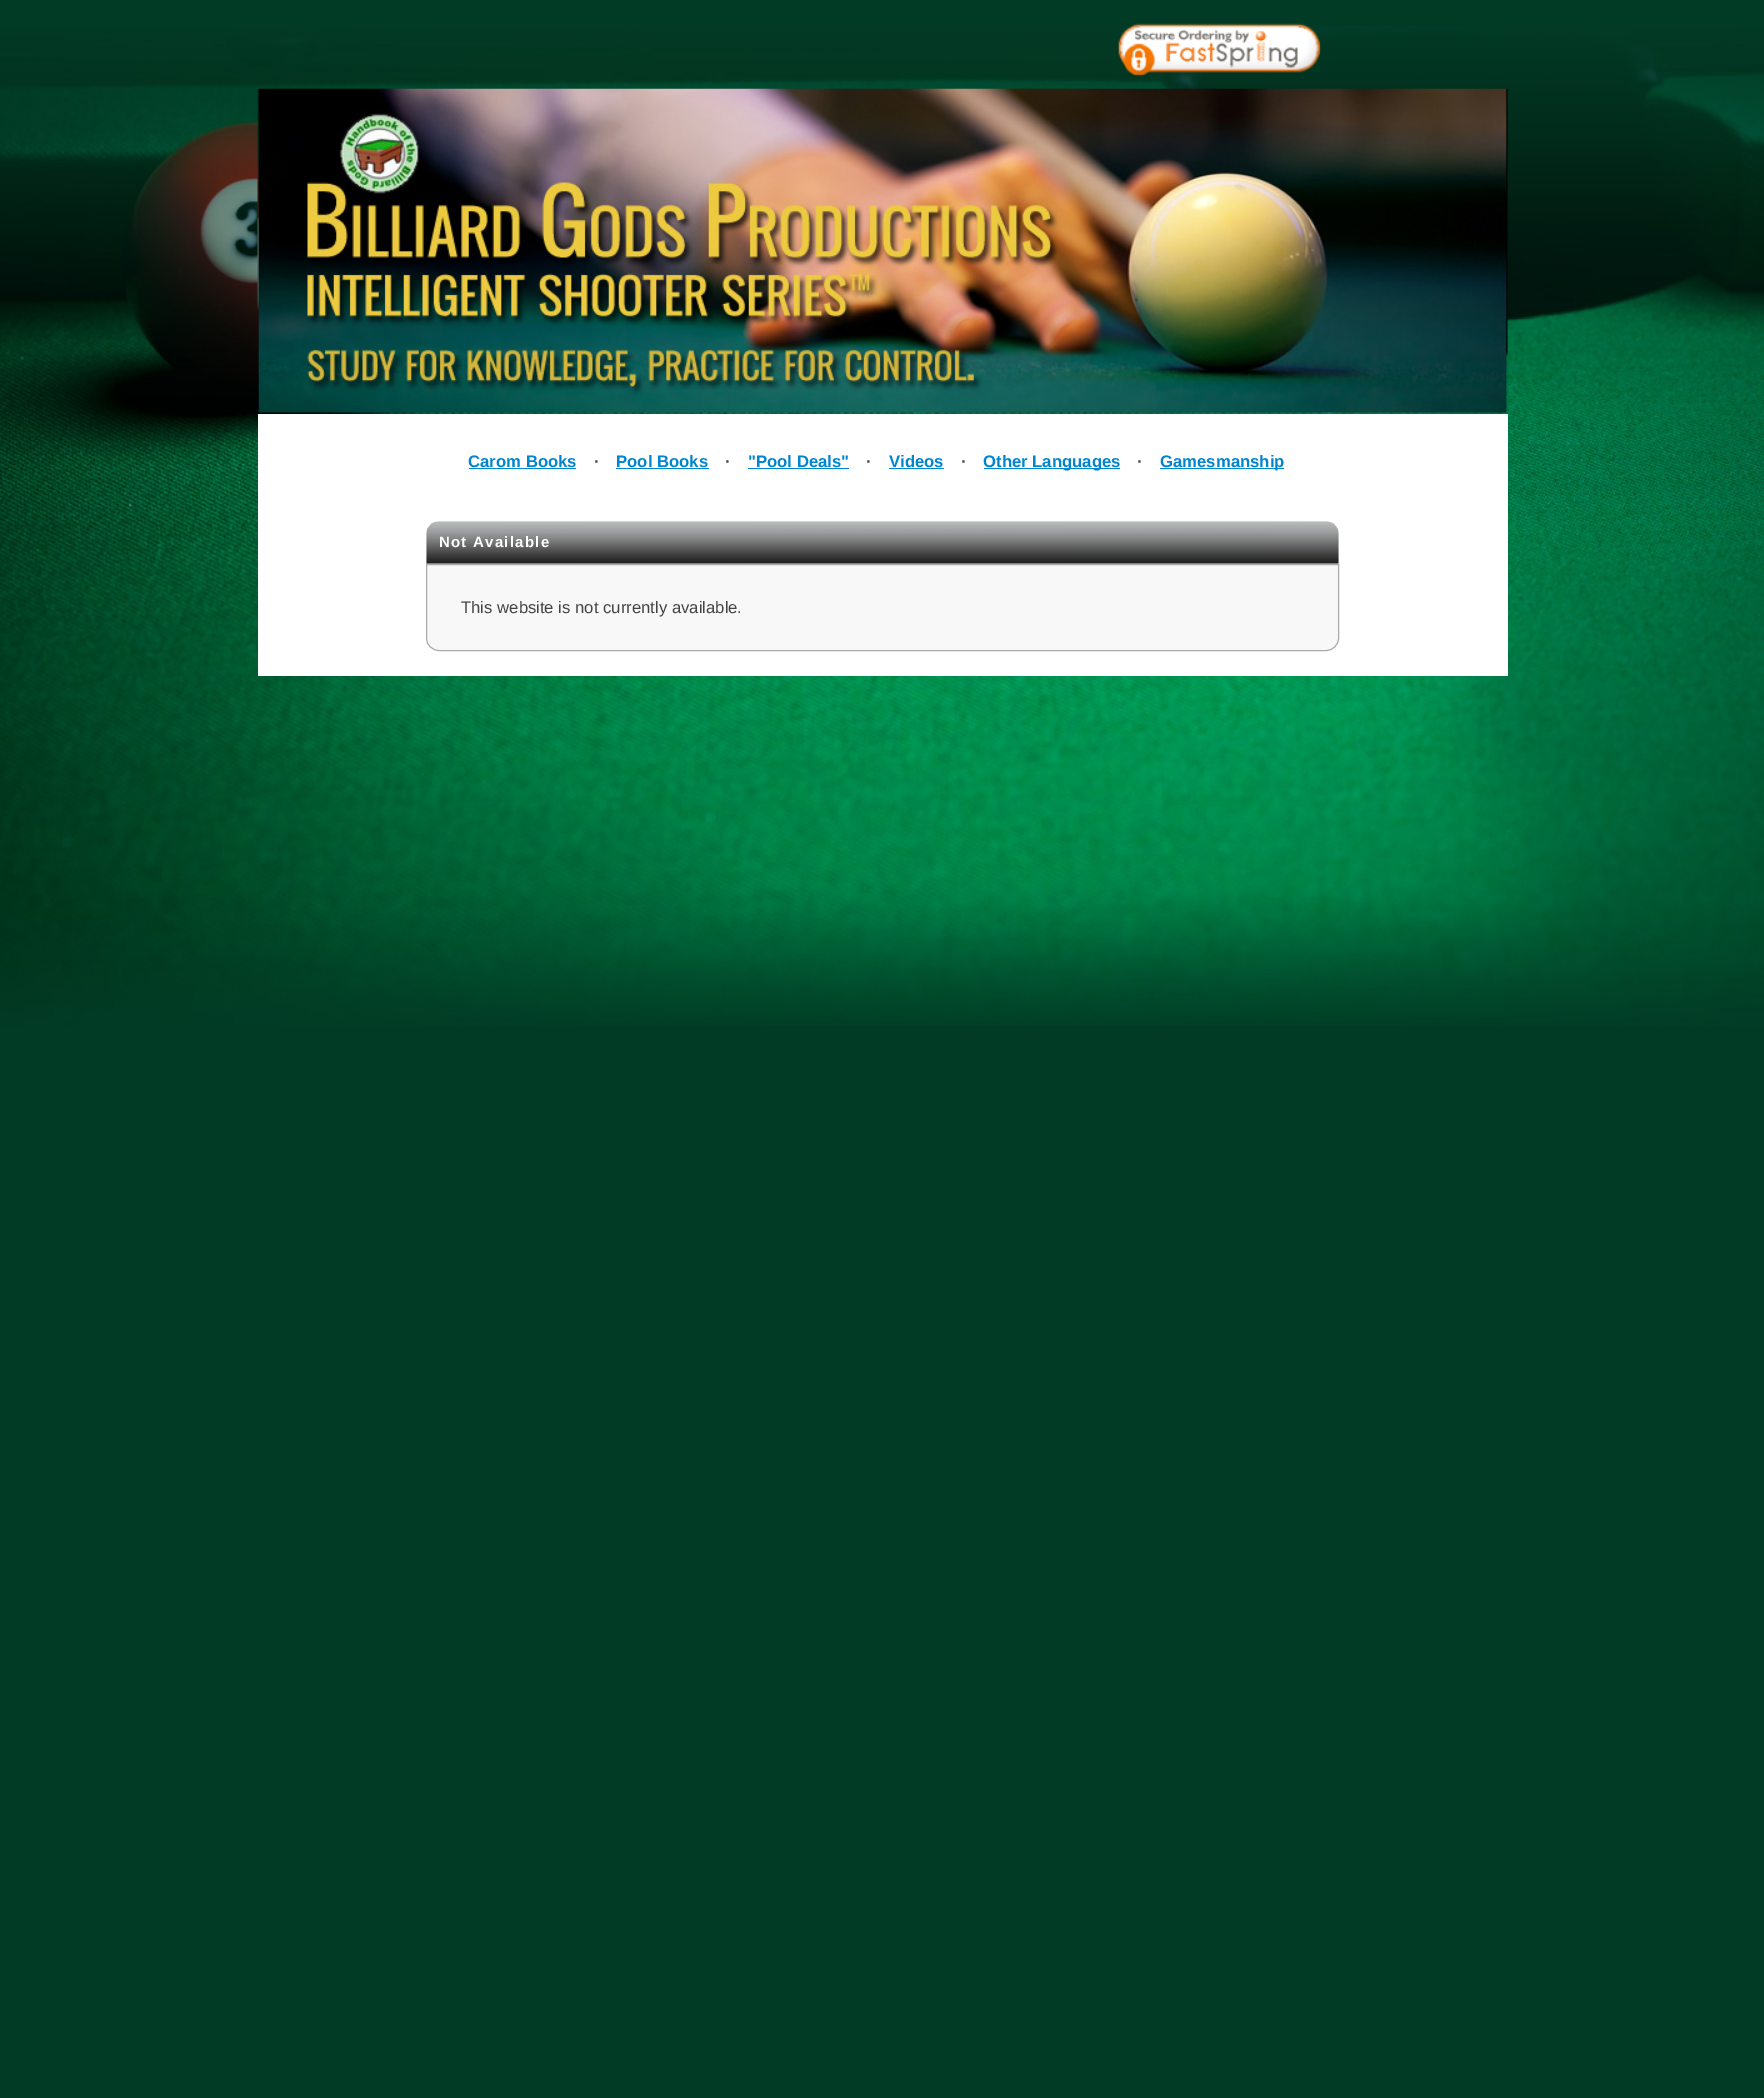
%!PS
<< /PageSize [1764 2098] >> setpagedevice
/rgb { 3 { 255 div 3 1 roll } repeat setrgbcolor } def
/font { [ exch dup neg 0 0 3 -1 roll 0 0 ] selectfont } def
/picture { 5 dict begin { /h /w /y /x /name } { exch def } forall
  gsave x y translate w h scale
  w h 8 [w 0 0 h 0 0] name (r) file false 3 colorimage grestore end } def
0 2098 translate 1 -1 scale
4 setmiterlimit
1 59 37 rgb
0 0 1764 2098 rectfill
(img/1.rgb) 0 26 1764 1000 picture
(img/2.rgb) 1118 23 203 53 picture
(img/3.rgb) 257 88 1251 326 picture
[
  [258 414 1250 262 255 255 255]
  [469 468 107 1 0 133 207]
  [616 468 93 1 0 133 207]
  [748 468 101 1 0 133 207]
  [889 468 55 1 0 133 207]
  [984 468 136 1 0 133 207]
  [1160 468 124 1 0 133 207]
] { aload pop rgb rectfill } forall
(img/4.rgb) 426 521 913 43 picture
248 248 248 rgb
426.5 564.5 moveto 1338.5 564.5 lineto 1338.5 638 lineto 1338.5 645 1333 650.5 1326 650.5 curveto 439 650.5 lineto 432 650.5 426.5 645 426.5 638 curveto closepath gsave fill grestore
170 170 170 rgb
stroke
/LiberationSans-Bold 16.7 font
0 133 207 rgb
468 467 moveto (Carom Books) show
68 68 68 rgb
594 467 moveto (·) show
0 133 207 rgb
616 467 moveto (Pool Books) show
68 68 68 rgb
725 467 moveto (·) show
0 133 207 rgb
748 467 moveto ("Pool Deals") show
68 68 68 rgb
866 467 moveto (·) show
0 133 207 rgb
889 467 moveto (Videos) show
68 68 68 rgb
961 467 moveto (·) show
0 133 207 rgb
983 467 moveto (Other Languages) show
68 68 68 rgb
1137 467 moveto (·) show
0 133 207 rgb
1160 467 moveto (Gamesmanship) show
/LiberationSans-Bold 15 font
255 255 255 rgb
439 547 moveto 1.25 0 (Not Available) ashow
/LiberationSans-Regular 16.7 font
68 68 68 rgb
461 613 moveto (This website is not currently available.) show
showpage
